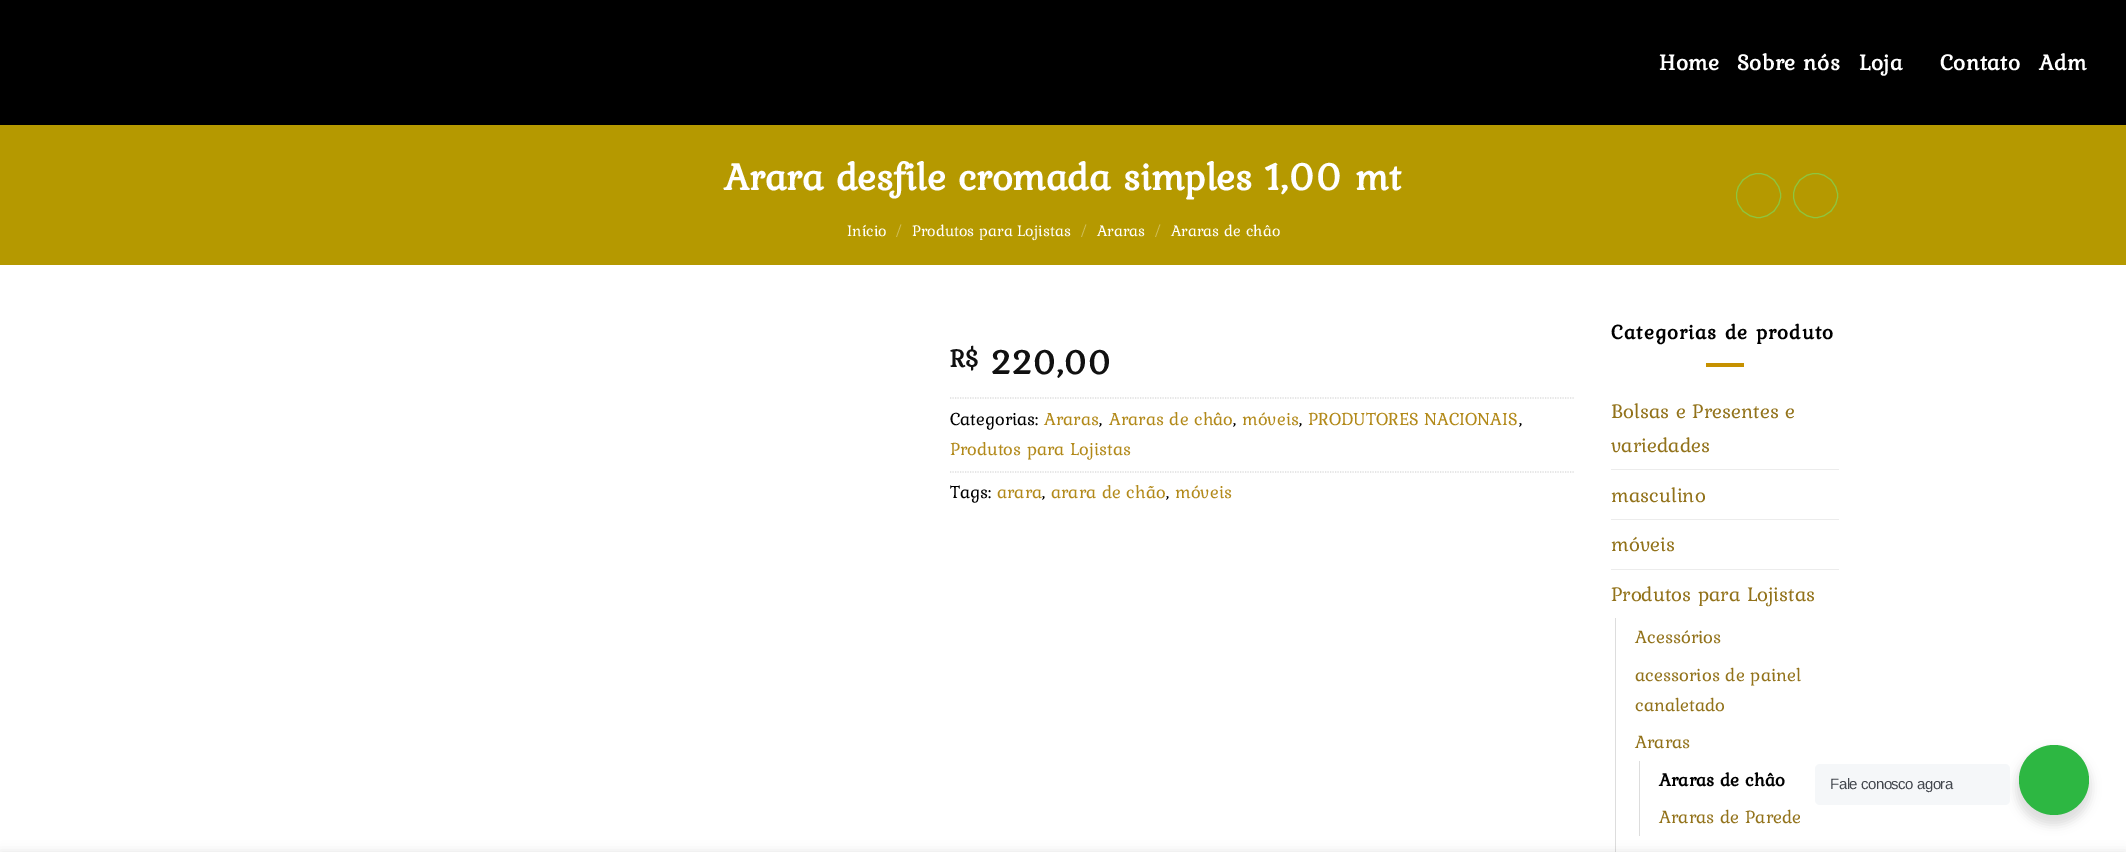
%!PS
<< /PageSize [2126 852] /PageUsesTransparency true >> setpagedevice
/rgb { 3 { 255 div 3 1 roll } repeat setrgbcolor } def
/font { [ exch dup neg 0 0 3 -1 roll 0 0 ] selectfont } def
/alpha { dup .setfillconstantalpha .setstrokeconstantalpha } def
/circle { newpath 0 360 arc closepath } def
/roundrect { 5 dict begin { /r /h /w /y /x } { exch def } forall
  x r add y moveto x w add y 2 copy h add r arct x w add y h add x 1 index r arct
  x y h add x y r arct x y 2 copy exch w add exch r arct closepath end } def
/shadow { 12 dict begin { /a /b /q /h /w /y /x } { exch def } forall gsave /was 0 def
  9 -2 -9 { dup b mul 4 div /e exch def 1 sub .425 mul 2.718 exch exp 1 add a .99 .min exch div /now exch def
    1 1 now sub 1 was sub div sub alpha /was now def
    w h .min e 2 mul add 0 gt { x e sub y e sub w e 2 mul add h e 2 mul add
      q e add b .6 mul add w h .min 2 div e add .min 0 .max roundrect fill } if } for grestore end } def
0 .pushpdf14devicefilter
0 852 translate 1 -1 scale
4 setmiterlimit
255 255 255 rgb
0 0 2126 852 rectfill
0 0 0 rgb
0 0 2126 125 rectfill
181 153 0 rgb
0 125 2126 140 rectfill
141 198 63 rgb
1758.5 195.5 22 circle stroke
1815.5 195.5 22 circle stroke
221 221 221 rgb
1.2 setlinewidth
[1.25 1.25] 0 setdash
950 398 moveto 1574 398 lineto stroke
950 472 moveto 1574 472 lineto stroke
[
  [1706 363 38 4 198 145 0]
  [1611 469 228 1 236 236 236]
  [1611 519 228 1 236 236 236]
  [1611 569 228 1 236 236 236]
  [1615 618 1 234 221 221 221]
  [1639 761 1 75 221 221 221]
] { aload pop rgb rectfill } forall
0 0 0 rgb
2016 750 75 75 37.5 5 0.14 shadow
245 247 249 rgb
1815 764 195 41 5 roundrect fill
45 183 66 rgb
2054 780 35 circle fill
0 0 0 rgb
0 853 2126 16 0 5.5 0.14 shadow
/Kurale-Bold 23 font
255 255 255 rgb
1659 70 moveto 0.5 0 (Home) ashow
1737 70 moveto 0.5 0 (Sobre nós) ashow
1859 70 moveto 0.5 0 (Loja) ashow
1940 70 moveto 0.5 0 (Contato) ashow
2039 70 moveto 0.5 0 (Adm) ashow
/Kurale-Bold 39.4 font
724 190 moveto (Arara desfile cromada simples 1,00 mt) show
/Kurale-Regular 16.25 font
847 236 moveto (Início) show
207 189 89 rgb
896 236 moveto (/) show
255 255 255 rgb
912 236 moveto (Produtos para Lojistas) show
207 189 89 rgb
1081 236 moveto (/) show
255 255 255 rgb
1097 236 moveto (Araras) show
207 189 89 rgb
1155 236 moveto (/) show
255 255 255 rgb
1171 236 moveto (Araras de châo) show
/Kurale-Bold 26 font
17 17 17 rgb
950 367 moveto (R$) show
/Kurale-Bold 35 font
991 374 moveto (220,00) show
/Kurale-Regular 18.5 font
0 0 0 rgb
950 425 moveto (Categorias:) show
178 137 25 rgb
1044 425 moveto (Araras) show
0 0 0 rgb
1099 425 moveto (,) show
178 137 25 rgb
1109 425 moveto (Araras de châo) show
0 0 0 rgb
1233 425 moveto (,) show
178 137 25 rgb
1242 425 moveto (móveis) show
0 0 0 rgb
1299 425 moveto (,) show
178 137 25 rgb
1308 425 moveto (PRODUTORES NACIONAIS) show
0 0 0 rgb
1519 425 moveto (,) show
178 137 25 rgb
950 455 moveto (Produtos para Lojistas) show
0 0 0 rgb
950 498 moveto (Tags:) show
178 137 25 rgb
997 498 moveto (arara) show
0 0 0 rgb
1042 498 moveto (,) show
178 137 25 rgb
1051 498 moveto (arara de chão) show
0 0 0 rgb
1166 498 moveto (,) show
178 137 25 rgb
1175 498 moveto (móveis) show
/Kurale-Bold 20.9 font
0 0 0 rgb
1611 339 moveto 1 0 (Categorias de produto) ashow
/Kurale-Regular 20.9 font
146 114 26 rgb
[
  [(Bolsas e Presentes e) 1611 418]
  [(variedades) 1611 452]
  [(masculino) 1611 502]
  [(móveis) 1611 551]
  [(Produtos para Lojistas) 1611 601]
] { aload pop moveto show } forall
/Kurale-Regular 18.75 font
[
  [(Acessórios) 1635 643]
  [(acessorios de painel) 1635 681]
  [(canaletado) 1635 711]
  [(Araras) 1635 748]
] { aload pop moveto show } forall
/Kurale-Bold 18.75 font
0 0 0 rgb
1659 786 moveto (Araras de châo) show
/Kurale-Regular 18.75 font
146 114 26 rgb
1659 823 moveto (Araras de Parede) show
/LiberationSans-Regular 15 font
67 71 78 rgb
1830 789 moveto -0.5 0 (Fale conosco agora) ashow
.poppdf14devicefilter showpage
